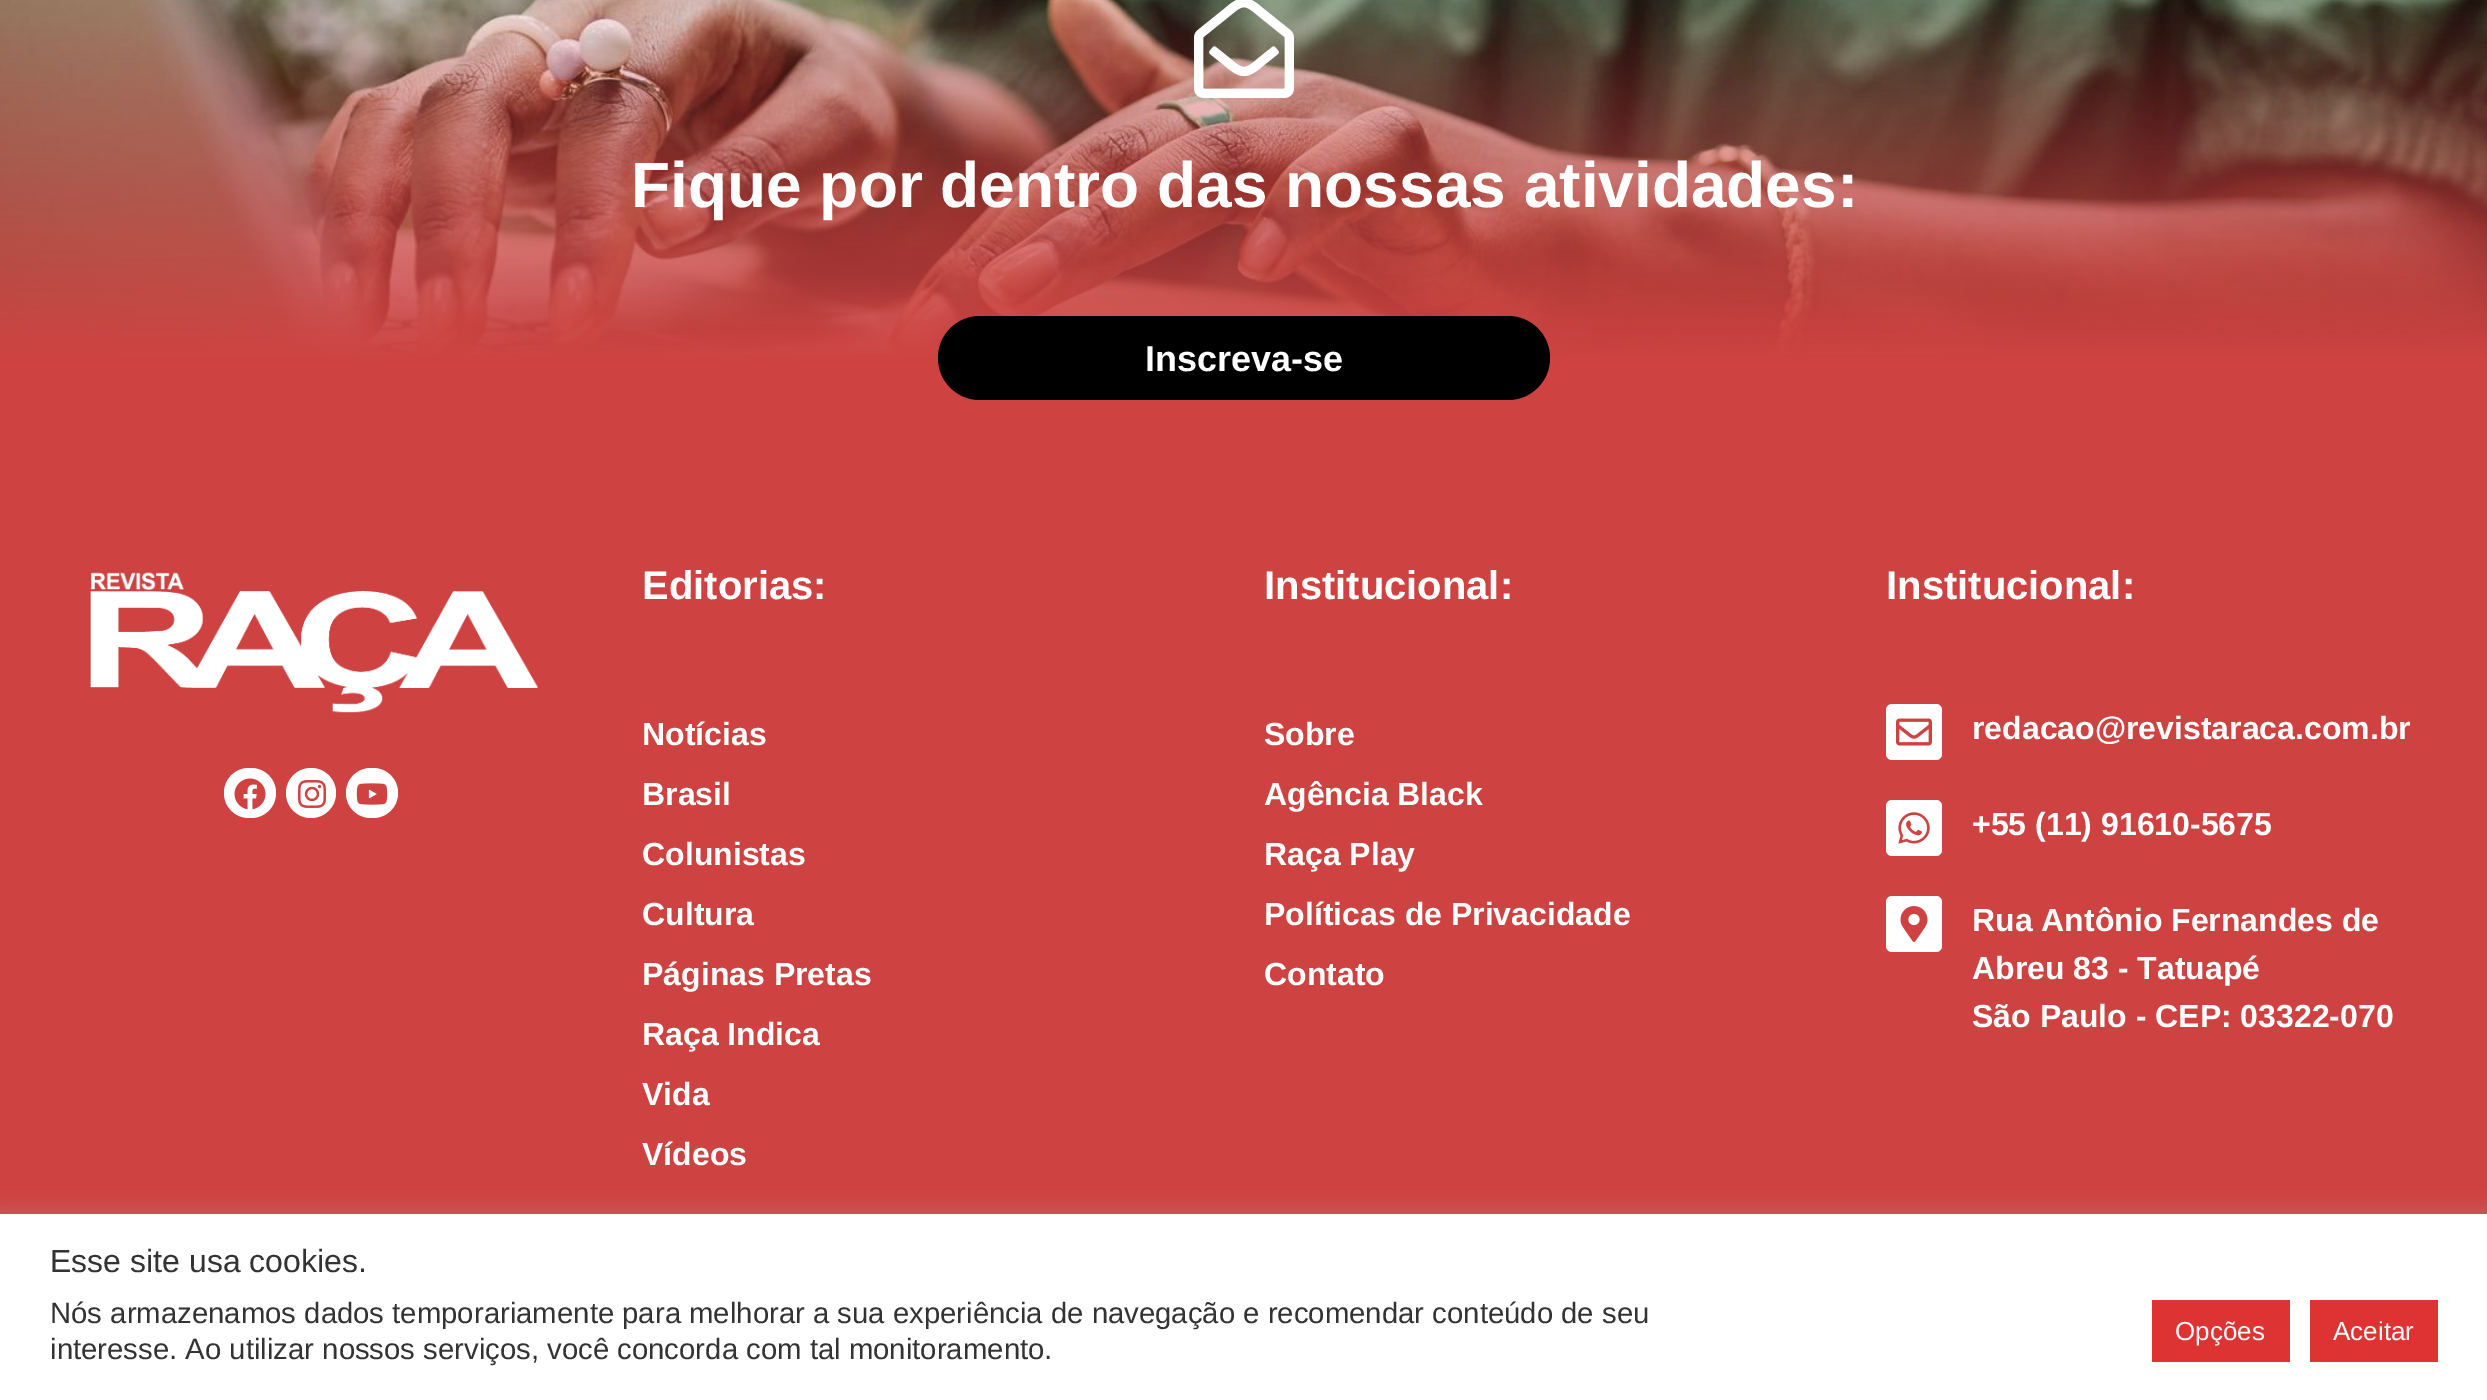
%!PS
<< /PageSize [2487 1400] /PageUsesTransparency true >> setpagedevice
/rgb { 3 { 255 div 3 1 roll } repeat setrgbcolor } def
/font { [ exch dup neg 0 0 3 -1 roll 0 0 ] selectfont } def
/alpha { dup .setfillconstantalpha .setstrokeconstantalpha } def
/circle { newpath 0 360 arc closepath } def
/roundrect { 5 dict begin { /r /h /w /y /x } { exch def } forall
  x r add y moveto x w add y 2 copy h add r arct x w add y h add x 1 index r arct
  x y h add x y r arct x y 2 copy exch w add exch r arct closepath end } def
/shadow { 12 dict begin { /a /b /q /h /w /y /x } { exch def } forall gsave /was 0 def
  9 -2 -9 { dup b mul 4 div /e exch def 1 sub .425 mul 2.718 exch exp 1 add a .99 .min exch div /now exch def
    1 1 now sub 1 was sub div sub alpha /was now def
    w h .min e 2 mul add 0 gt { x e sub y e sub w e 2 mul add h e 2 mul add
      q e add b .6 mul add w h .min 2 div e add .min 0 .max roundrect fill } if } for grestore end } def
/picture { 5 dict begin { /h /w /y /x /name } { exch def } forall
  gsave x y translate w h scale
  w h 8 [w 0 0 h 0 0] name (r) file false 3 colorimage grestore end } def
0 .pushpdf14devicefilter
0 1400 translate 1 -1 scale
4 setmiterlimit
255 255 255 rgb
0 0 2487 1400 rectfill
(img/1.rgb) 0 0 2487 444 picture
(img/2.rgb) 1194 0 100 98 picture
0 0 0 rgb
938 316 612 84 42 roundrect fill
206 67 66 rgb
0 444 2487 770 rectfill
(img/3.rgb) 90 572 448 141 picture
255 255 255 rgb
224 768 52 50 25 roundrect fill
(img/4.rgb) 234 778 32 32 picture
311 793 25 circle fill
(img/5.rgb) 298 780 28 28 picture
346 768 52 50 25 roundrect fill
(img/6.rgb) 356 783 32 22 picture
1886 704 56 56 6 roundrect fill
(img/7.rgb) 1896 718 36 28 picture
1886 800 56 56 6 roundrect fill
(img/8.rgb) 1898 812 32 32 picture
1886 896 56 56 6 roundrect fill
(img/9.rgb) 1900 906 28 36 picture
172 171 171 rgb
0 1212 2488 186 0 10 0.3 shadow
[
  [0 1214 2487 186 255 255 255]
  [2152 1300 138 62 221 51 51]
  [2310 1300 128 62 221 51 51]
] { aload pop rgb rectfill } forall
/LiberationSans-Bold 64 font
255 255 255 rgb
631 207 moveto (Fique por dentro das nossas atividades:) show
/LiberationSans-Bold 36 font
1145 371 moveto (Inscreva-se) show
/LiberationSans-Bold 40 font
642 599 moveto (Editorias:) show
/LiberationSans-Bold 32 font
[
  [(Notícias) 642 745]
  [(Brasil) 642 805]
  [(Colunistas) 642 865]
  [(Cultura) 642 925]
  [(Páginas Pretas) 642 985]
  [(Raça Indica) 642 1045]
  [(Vida) 642 1105]
  [(Vídeos) 642 1165]
] { aload pop moveto show } forall
/LiberationSans-Bold 40 font
1264 599 moveto (Institucional:) show
/LiberationSans-Bold 32 font
[
  [(Sobre) 1264 745]
  [(Agência Black) 1264 805]
  [(Raça Play) 1264 865]
  [(Políticas de Privacidade) 1264 925]
  [(Contato) 1264 985]
] { aload pop moveto show } forall
/LiberationSans-Bold 40 font
1886 599 moveto (Institucional:) show
/LiberationSans-Bold 32 font
[
  [(redacao@revistaraca.com.br) 1972 739]
  [(+55 \(11\) 91610-5675) 1972 835]
  [(Rua Antônio Fernandes de) 1972 931]
  [(Abreu 83 - Tatuapé) 1972 979]
  [(São Paulo - CEP: 03322-070) 1972 1027]
] { aload pop moveto show } forall
/LiberationSans-Regular 32 font
51 51 51 rgb
50 1272 moveto (Esse site usa cookies.) show
/LiberationSans-Regular 29.33 font
50 1323 moveto (Nós armazenamos dados temporariamente para melhorar a sua experiência de navegação e recomendar conteúdo de seu) show
50 1359 moveto (interesse. Ao utilizar nossos serviços, você concorda com tal monitoramento.) show
/LiberationSans-Regular 26 font
255 255 255 rgb
2175 1340 moveto (Opções) show
2333 1340 moveto (Aceitar) show
.poppdf14devicefilter showpage
